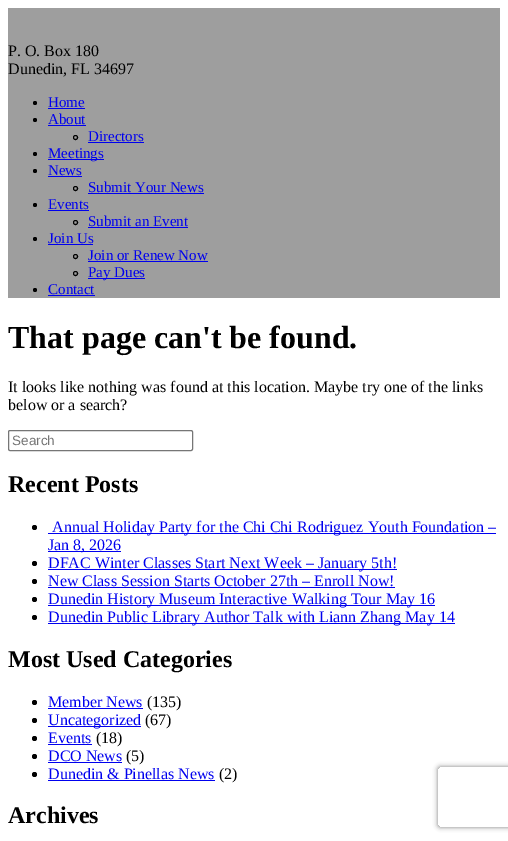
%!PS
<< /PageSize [508 841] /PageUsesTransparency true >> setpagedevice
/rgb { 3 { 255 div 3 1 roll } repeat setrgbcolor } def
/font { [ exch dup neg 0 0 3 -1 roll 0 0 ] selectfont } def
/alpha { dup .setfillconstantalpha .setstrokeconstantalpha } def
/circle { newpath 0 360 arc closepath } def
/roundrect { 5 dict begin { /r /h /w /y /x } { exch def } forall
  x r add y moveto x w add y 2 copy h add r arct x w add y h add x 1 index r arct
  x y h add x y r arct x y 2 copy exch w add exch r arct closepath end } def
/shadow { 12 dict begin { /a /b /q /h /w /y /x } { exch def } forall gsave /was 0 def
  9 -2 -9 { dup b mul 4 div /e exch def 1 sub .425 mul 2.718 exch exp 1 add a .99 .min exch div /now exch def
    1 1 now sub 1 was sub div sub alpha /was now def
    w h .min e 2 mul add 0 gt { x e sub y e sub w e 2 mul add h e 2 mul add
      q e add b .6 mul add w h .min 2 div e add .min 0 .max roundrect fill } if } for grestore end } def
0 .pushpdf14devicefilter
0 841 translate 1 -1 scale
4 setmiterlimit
255 255 255 rgb
0 0 508 841 rectfill
158 158 158 rgb
8 8 492 290 rectfill
0 0 0 rgb
35 103 2 circle fill
0 0 238 rgb
48 108 37 1 rectfill
0 0 0 rgb
35 120 2 circle fill
0 0 238 rgb
48 125 38 1 rectfill
0 0 0 rgb
75.5 137.5 2 circle stroke
0 0 238 rgb
88 142 56 1 rectfill
0 0 0 rgb
35 154 2 circle fill
0 0 238 rgb
48 159 56 1 rectfill
0 0 0 rgb
35 171 2 circle fill
0 0 238 rgb
48 176 34 1 rectfill
0 0 0 rgb
75.5 188.5 2 circle stroke
0 0 238 rgb
88 193 116 1 rectfill
0 0 0 rgb
35 205 2 circle fill
0 0 238 rgb
48 210 41 1 rectfill
0 0 0 rgb
75.5 222.5 2 circle stroke
0 0 238 rgb
88 227 100 1 rectfill
0 0 0 rgb
35 239 2 circle fill
0 0 238 rgb
48 244 45 1 rectfill
0 0 0 rgb
75.5 256.5 2 circle stroke
0 0 238 rgb
88 261 120 1 rectfill
0 0 0 rgb
75.5 273.5 2 circle stroke
0 0 238 rgb
88 278 57 1 rectfill
0 0 0 rgb
35 290 2 circle fill
0 0 238 rgb
48 295 47 1 rectfill
118 118 118 rgb
8.5 430.5 184 20 1.5 roundrect stroke
0 0 0 rgb
34.5 527.5 2.5 circle fill
0 0 238 rgb
48 533 448 1 rectfill
48 551 73 1 rectfill
0 0 0 rgb
34.5 563.5 2.5 circle fill
0 0 238 rgb
48 569 349 1 rectfill
0 0 0 rgb
34.5 581.5 2.5 circle fill
0 0 238 rgb
48 587 347 1 rectfill
0 0 0 rgb
34.5 599.5 2.5 circle fill
0 0 238 rgb
48 605 387 1 rectfill
0 0 0 rgb
34.5 617.5 2.5 circle fill
0 0 238 rgb
48 623 407 1 rectfill
0 0 0 rgb
34.5 702.5 2.5 circle fill
0 0 238 rgb
48 708 95 1 rectfill
0 0 0 rgb
34.5 720.5 2.5 circle fill
0 0 238 rgb
48 726 93 1 rectfill
0 0 0 rgb
34.5 738.5 2.5 circle fill
0 0 238 rgb
48 744 44 1 rectfill
0 0 0 rgb
34.5 756.5 2.5 circle fill
0 0 238 rgb
48 762 74 1 rectfill
0 0 0 rgb
34.5 774.5 2.5 circle fill
0 0 238 rgb
48 780 167 1 rectfill
gsave
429 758 moveto 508 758 lineto 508 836 lineto 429 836 lineto closepath 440 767 moveto 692 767 lineto 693 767 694 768 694 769 curveto 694 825 lineto 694 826 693 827 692 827 curveto 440 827 lineto 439 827 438 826 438 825 curveto 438 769 lineto 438 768 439 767 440 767 curveto closepath eoclip newpath
128 128 128 rgb
438 767 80 60 2 2.5 1 shadow
grestore
/LiberationSerif-Regular 16 font
0 0 0 rgb
8 56 moveto (P. O. Box 180) show
8 74 moveto (Dunedin, FL 34697) show
/LiberationSerif-Regular 15 font
0 0 238 rgb
[
  [(Home) 48 107]
  [(About) 48 124]
  [(Directors) 88 141]
  [(Meetings) 48 158]
  [(News) 48 175]
  [(Submit Your News) 88 192]
  [(Events) 48 209]
  [(Submit an Event) 88 226]
  [(Join Us) 48 243]
  [(Join or Renew Now) 88 260]
  [(Pay Dues) 88 277]
  [(Contact) 48 294]
] { aload pop moveto show } forall
/LiberationSerif-Bold 32 font
0 0 0 rgb
8 348 moveto (That page can't be found.) show
/LiberationSerif-Regular 16 font
8 392 moveto (It looks like nothing was found at this location. Maybe try one of the links) show
8 410 moveto (below or a search?) show
/LiberationSans-Regular 13.5 font
117 117 117 rgb
12 445 moveto (Search) show
/LiberationSerif-Bold 24 font
0 0 0 rgb
8 492 moveto (Recent Posts) show
/LiberationSerif-Regular 16 font
0 0 238 rgb
[
  [(Annual Holiday Party for the Chi Chi Rodriguez Youth Foundation –) 52 532]
  [(Jan 8, 2026) 48 550]
  [(DFAC Winter Classes Start Next Week – January 5th!) 48 568]
  [(New Class Session Starts October 27th – Enroll Now!) 48 586]
  [(Dunedin History Museum Interactive Walking Tour May 16) 48 604]
  [(Dunedin Public Library Author Talk with Liann Zhang May 14) 48 622]
] { aload pop moveto show } forall
/LiberationSerif-Bold 24 font
0 0 0 rgb
8 667 moveto (Most Used Categories) show
/LiberationSerif-Regular 16 font
0 0 238 rgb
48 707 moveto (Member News) show
0 0 0 rgb
147 707 moveto (\(135\)) show
0 0 238 rgb
48 725 moveto (Uncategorized) show
0 0 0 rgb
145 725 moveto (\(67\)) show
0 0 238 rgb
48 743 moveto (Events) show
0 0 0 rgb
96 743 moveto (\(18\)) show
0 0 238 rgb
48 761 moveto (DCO News) show
0 0 0 rgb
126 761 moveto (\(5\)) show
0 0 238 rgb
48 779 moveto (Dunedin & Pinellas News) show
0 0 0 rgb
219 779 moveto (\(2\)) show
/LiberationSerif-Bold 24 font
8 823 moveto (Archives) show
.poppdf14devicefilter showpage
